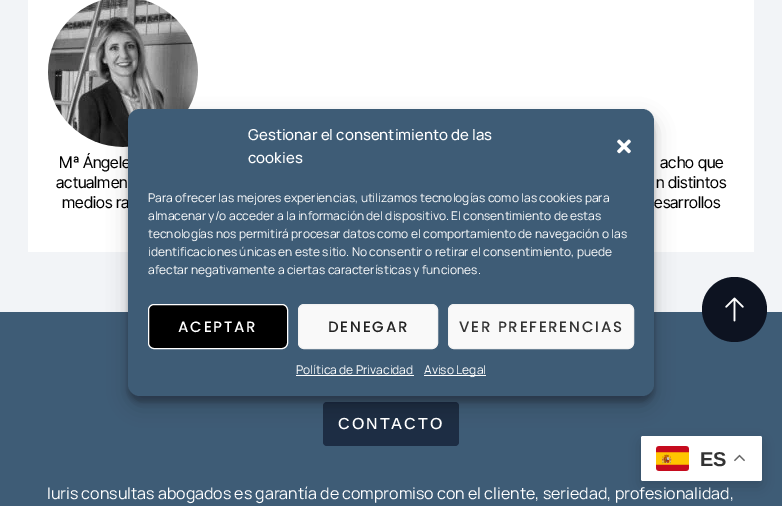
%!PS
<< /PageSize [782 506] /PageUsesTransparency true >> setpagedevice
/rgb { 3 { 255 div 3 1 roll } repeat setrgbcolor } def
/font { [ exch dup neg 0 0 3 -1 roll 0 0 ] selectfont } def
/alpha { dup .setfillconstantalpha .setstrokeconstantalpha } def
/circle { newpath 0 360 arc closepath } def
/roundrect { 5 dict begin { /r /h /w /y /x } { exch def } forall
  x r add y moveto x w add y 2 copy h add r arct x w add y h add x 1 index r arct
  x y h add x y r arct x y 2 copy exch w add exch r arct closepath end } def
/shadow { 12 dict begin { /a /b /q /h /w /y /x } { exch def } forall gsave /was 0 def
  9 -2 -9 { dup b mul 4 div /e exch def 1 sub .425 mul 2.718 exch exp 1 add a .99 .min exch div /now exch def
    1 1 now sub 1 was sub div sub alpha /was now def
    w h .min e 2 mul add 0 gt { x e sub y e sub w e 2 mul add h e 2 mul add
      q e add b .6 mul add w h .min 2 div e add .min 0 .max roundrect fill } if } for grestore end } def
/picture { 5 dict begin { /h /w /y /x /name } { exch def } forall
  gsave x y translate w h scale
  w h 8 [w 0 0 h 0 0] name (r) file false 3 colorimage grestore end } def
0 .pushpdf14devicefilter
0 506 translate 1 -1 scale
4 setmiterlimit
242 244 247 rgb
0 0 782 506 rectfill
255 255 255 rgb
28 0 726 252 rectfill
(img/2.rgb) 48 0 150 147 picture
62 92 118 rgb
0 312 782 194 rectfill
29 45 68 rgb
323 402 136 44 4 roundrect fill
0 0 0 rgb
128 115 526 287 12 3 0.23 shadow
128 119 526 287 12 10 0.19 shadow
13 19 33 rgb
734.5 309.5 32.5 circle fill
(img/3.rgb) 725 297 19 25 picture
0 0 0 rgb
641 441 121 45 2 7.5 0.15 shadow
255 255 255 rgb
641 436 121 45 2 roundrect fill
(img/4.rgb) 656 446 33 25 picture
(img/5.rgb) 734 454 11 8 picture
/InterTight-Regular 16 font
0 0 0 rgb
[
  [(Mª Ángele) 59 168]
  [(acho que) 660 168]
  [(actualmen) 56 188]
  [(n distintos) 656 188]
  [(medios ra) 62 208]
] { aload pop moveto show } forall
62 92 118 rgb
128 109 526 287 12 roundrect fill
/Manrope-Regular 12 font
255 255 255 rgb
[
  [(afectar negativamente a ciertas características y funciones.) 148 274]
  [(identificaciones únicas en este sitio. No consentir o retirar el consentimiento, puede) 148 256]
  [(tecnologías nos permitirá procesar datos como el comportamiento de navegación o las) 148 238]
  [(almacenar y/o acceder a la información del dispositivo. El consentimiento de estas) 148 220]
  [(Para ofrecer las mejores experiencias, utilizamos tecnologías como las cookies para) 148 202]
] { aload pop moveto show } forall
(img/1.rgb) 617 139 14 15 picture
424 375 62 1 rectfill
424 374 moveto (Aviso Legal) show
296 374 moveto (Política de Privacidad) show
296 375 118 1 rectfill
249 249 249 rgb
448.5 304.5 185 44 5.5 roundrect gsave fill grestore
242 242 242 rgb
stroke
/Poppins-Medium 15 font
51 51 51 rgb
459 332 moveto 1.75 0 (VER PREFERENCIAS) ashow
249 249 249 rgb
298.5 304.5 139 44 5.5 roundrect gsave fill grestore
242 242 242 rgb
stroke
34 34 34 rgb
328 332 moveto 1.75 0 (DENEGAR) ashow
0 0 0 rgb
148.5 304.5 139 44 5.5 roundrect gsave fill grestore
255 255 255 rgb
stroke
178 332 moveto 1.75 0 (ACEPTAR) ashow
/Manrope-Medium 15 font
248 163 moveto (cookies) show
248 140 moveto (Gestionar el consentimiento de las) show
/InterTight-Regular 16 font
0 0 0 rgb
654 208 moveto (esarrollos) show
/Arimo-Medium 16 font
255 255 255 rgb
338 429 moveto 2 0 (CONTACTO) ashow
/Manrope-Regular 16 font
47 499 moveto (Iuris consultas abogados es garantía de compromiso con el cliente, seriedad, profesionalidad,) show
/LiberationSans-Bold 20 font
51 51 51 rgb
700 466 moveto (ES) show
.poppdf14devicefilter showpage
